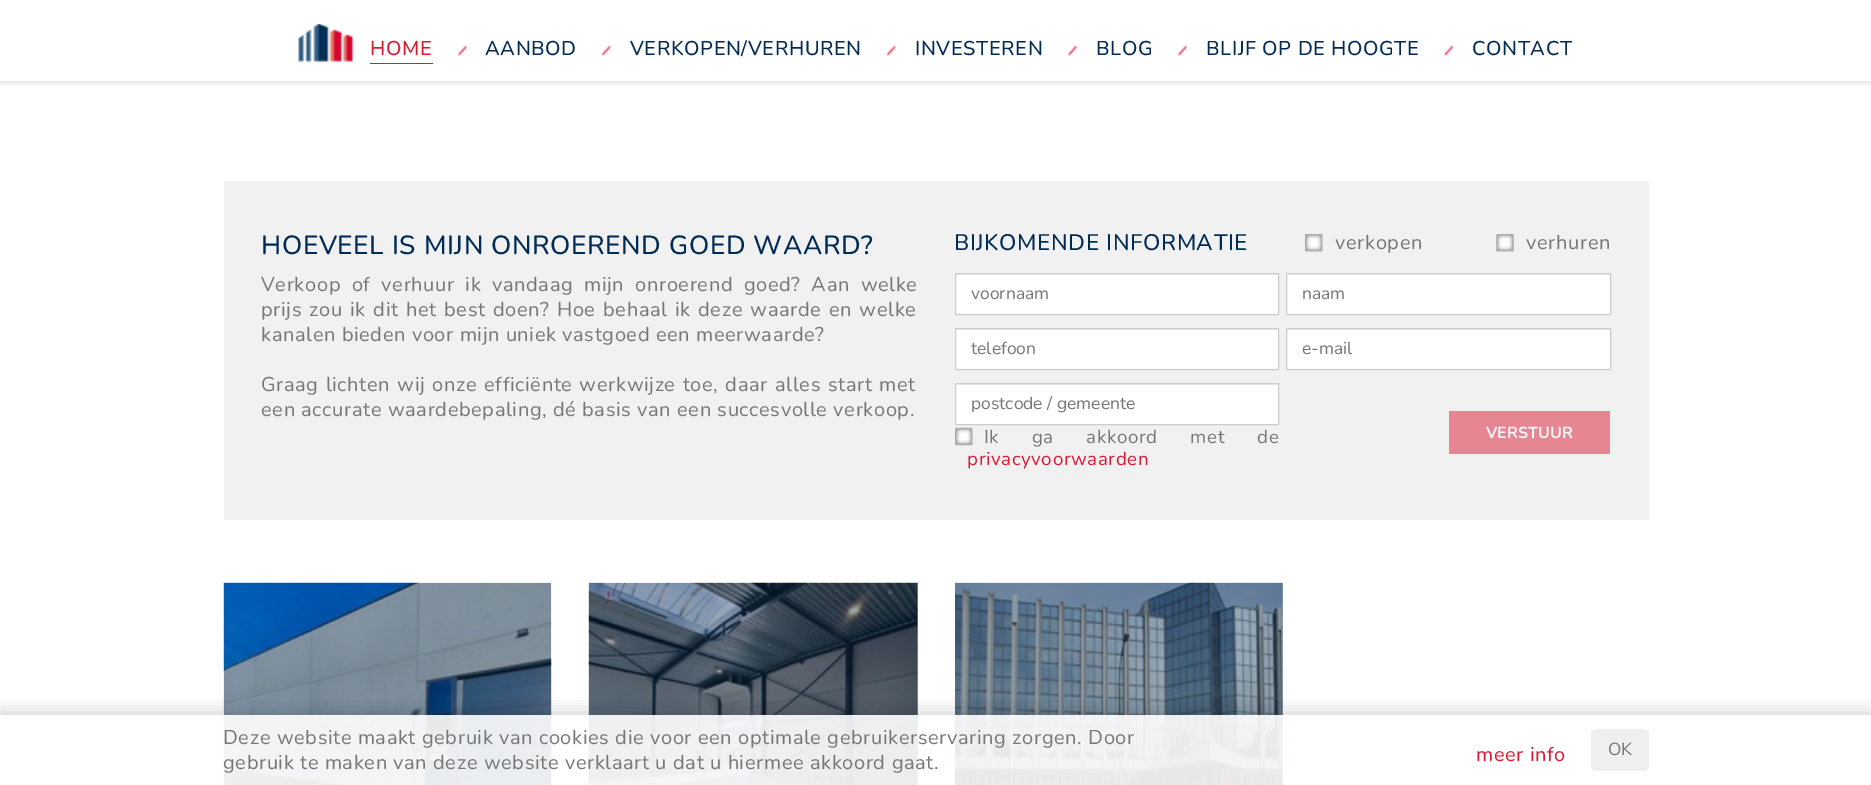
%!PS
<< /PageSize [1871 785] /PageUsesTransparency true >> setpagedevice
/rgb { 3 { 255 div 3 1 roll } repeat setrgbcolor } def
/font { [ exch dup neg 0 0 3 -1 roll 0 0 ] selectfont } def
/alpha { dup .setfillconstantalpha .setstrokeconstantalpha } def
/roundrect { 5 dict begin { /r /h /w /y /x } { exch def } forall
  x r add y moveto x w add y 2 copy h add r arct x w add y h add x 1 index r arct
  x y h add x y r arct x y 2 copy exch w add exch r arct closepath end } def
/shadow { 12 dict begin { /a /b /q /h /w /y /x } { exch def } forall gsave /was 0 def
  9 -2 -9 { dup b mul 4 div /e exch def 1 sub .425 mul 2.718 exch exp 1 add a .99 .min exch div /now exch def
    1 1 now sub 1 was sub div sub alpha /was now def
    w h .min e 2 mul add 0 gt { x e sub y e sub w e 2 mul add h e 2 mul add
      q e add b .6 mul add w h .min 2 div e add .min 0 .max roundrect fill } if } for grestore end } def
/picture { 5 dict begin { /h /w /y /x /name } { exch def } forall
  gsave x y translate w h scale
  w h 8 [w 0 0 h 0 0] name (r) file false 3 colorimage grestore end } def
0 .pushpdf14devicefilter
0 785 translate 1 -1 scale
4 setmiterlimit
255 255 255 rgb
0 0 1871 785 rectfill
154 171 187 rgb
1282 583 1 202 rectfill
917 583 1 202 rectfill
gsave
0 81 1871 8 rectclip
221 221 221 rgb
0 1 1871 82 0 3 1 shadow
grestore
(img/1.rgb) 298 24 55 38 picture
218 26 53 rgb
370 63 63 1 rectfill
(img/2.rgb) 457 45 11 12 picture
(img/3.rgb) 601 45 11 12 picture
(img/3.rgb) 886 45 11 12 picture
(img/2.rgb) 1067 45 11 12 picture
(img/4.rgb) 1177 45 11 12 picture
(img/5.rgb) 1443 45 11 12 picture
241 241 241 rgb
224 181 1425 339 rectfill
(img/6.rgb) 1305 234 18 18 picture
(img/7.rgb) 1496 234 18 18 picture
255 255 255 rgb
955 273 324 42 1 roundrect fill
236 236 236 rgb
956 274 322 1 rectfill
204 204 204 rgb
955.5 273.5 323 41 0.5 roundrect stroke
255 255 255 rgb
1286 273 325 42 1 roundrect fill
236 236 236 rgb
1288 274 322 1 rectfill
204 204 204 rgb
1286.5 273.5 324 41 0.5 roundrect stroke
255 255 255 rgb
955 328 324 42 1 roundrect fill
236 236 236 rgb
956 329 322 1 rectfill
204 204 204 rgb
955.5 328.5 323 41 0.5 roundrect stroke
255 255 255 rgb
1286 328 325 42 1 roundrect fill
236 236 236 rgb
1288 329 322 1 rectfill
204 204 204 rgb
1286.5 328.5 324 41 0.5 roundrect stroke
255 255 255 rgb
955 383 324 42 1 roundrect fill
236 236 236 rgb
956 384 322 1 rectfill
204 204 204 rgb
955.5 383.5 323 41 0.5 roundrect stroke
(img/8.rgb) 955 427 18 19 picture
230 134 147 rgb
1449 411 161 43 rectfill
(img/9.rgb) 223 582 329 203 picture
(img/10.rgb) 588 582 330 203 picture
(img/11.rgb) 955 582 328 203 picture
gsave
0 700 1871 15 rectclip
0 0 0 rgb
0 714 1871 70 0 11 0.2 shadow
grestore
0.9 alpha
255 255 255 rgb
223 715 1060 70 rectfill
1 alpha
239 239 239 rgb
1591 729 58 42 5 roundrect fill
/Nunito-Medium 20 font
218 26 53 rgb
370 55 moveto 0.62 0 (HOME) ashow
0 43 84 rgb
485 55 moveto 0.62 0 (AANBOD) ashow
630 55 moveto 0.62 0 (VERKOPEN/VERHUREN) ashow
915 55 moveto 0.62 0 (INVESTEREN) ashow
1096 55 moveto 0.62 0 (BLOG) ashow
1206 55 moveto 0.62 0 (BLIJF OP DE HOOGTE) ashow
1472 55 moveto 0.62 0 (CONTACT) ashow
/Nunito-Medium 26.25 font
261 254 moveto 0.62 0 (HOEVEEL IS MIJN ONROEREND GOED WAARD?) ashow
/Nunito-Regular 20 font
119 119 119 rgb
261 291 moveto 5 0 32 0.62 0 (Verkoop of verhuur ik vandaag mijn onroerend goed? Aan welke) awidthshow
261 316 moveto 1.6 0 32 0.62 0 (prijs zou ik dit het best doen? Hoe behaal ik deze waarde en welke) awidthshow
261 341 moveto 0.62 0 (kanalen bieden voor mijn uniek vastgoed een meerwaarde?) ashow
261 391 moveto 1.25 0 32 0.62 0 (Graag lichten wij onze efficiënte werkwijze toe, daar alles start met) awidthshow
261 416 moveto 0.62 0 (een accurate waardebepaling, dé basis van een succesvolle verkoop.) ashow
/Nunito-Medium 22.5 font
0 43 84 rgb
954 250 moveto 0.62 0 (BIJKOMENDE INFORMATIE) ashow
/Nunito-Regular 20 font
119 119 119 rgb
1335 249 moveto 0.62 0 (verkopen) ashow
1526 249 moveto 0.62 0 (verhuren) ashow
/Nunito-Regular 17.5 font
[
  [(voornaam) 971 299]
  [(naam) 1302 299]
  [(telefoon) 971 354]
  [(e-mail) 1302 354]
  [(postcode / gemeente) 971 409]
] { aload pop moveto show } forall
/Nunito-Regular 18.75 font
984 443 moveto 27 0 32 0.62 0 (Ik ga akkoord met de) awidthshow
218 26 53 rgb
967 465 moveto 0.62 0 (privacyvoorwaarden) ashow
/Nunito-Bold 16 font
248 248 248 rgb
1486 438 moveto (VERSTUUR) show
/Nunito-Regular 20 font
119 119 119 rgb
223 744 moveto 0.62 0 (Deze website maakt gebruik van cookies die voor een optimale gebruikerservaring zorgen. Door) ashow
223 769 moveto 0.62 0 (gebruik te maken van deze website verklaart u dat u hiermee akkoord gaat.) ashow
218 26 53 rgb
1476 761 moveto 0.62 0 (meer info) ashow
/Nunito-Regular 17.5 font
119 119 119 rgb
1608 755 moveto (OK) show
.poppdf14devicefilter showpage
